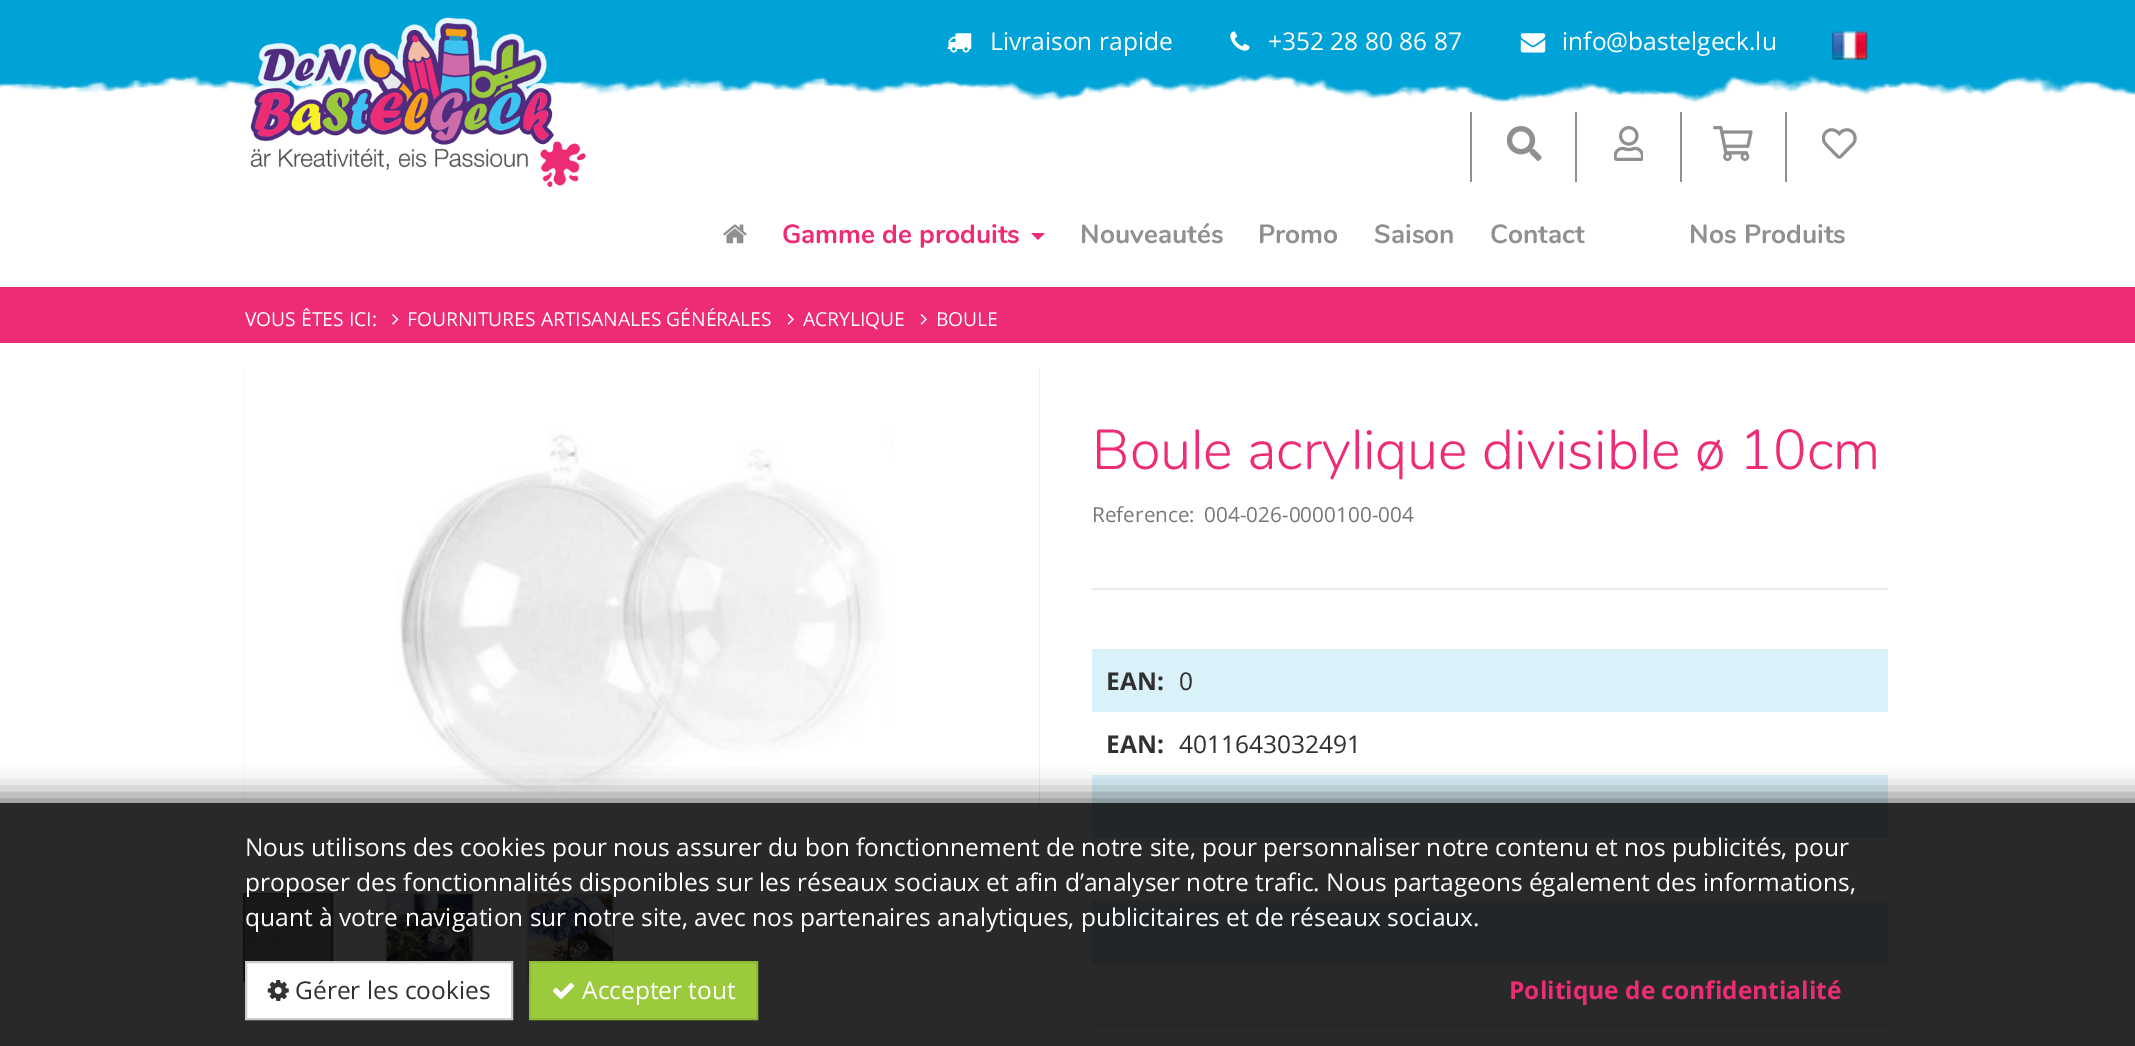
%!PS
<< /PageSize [2135 1046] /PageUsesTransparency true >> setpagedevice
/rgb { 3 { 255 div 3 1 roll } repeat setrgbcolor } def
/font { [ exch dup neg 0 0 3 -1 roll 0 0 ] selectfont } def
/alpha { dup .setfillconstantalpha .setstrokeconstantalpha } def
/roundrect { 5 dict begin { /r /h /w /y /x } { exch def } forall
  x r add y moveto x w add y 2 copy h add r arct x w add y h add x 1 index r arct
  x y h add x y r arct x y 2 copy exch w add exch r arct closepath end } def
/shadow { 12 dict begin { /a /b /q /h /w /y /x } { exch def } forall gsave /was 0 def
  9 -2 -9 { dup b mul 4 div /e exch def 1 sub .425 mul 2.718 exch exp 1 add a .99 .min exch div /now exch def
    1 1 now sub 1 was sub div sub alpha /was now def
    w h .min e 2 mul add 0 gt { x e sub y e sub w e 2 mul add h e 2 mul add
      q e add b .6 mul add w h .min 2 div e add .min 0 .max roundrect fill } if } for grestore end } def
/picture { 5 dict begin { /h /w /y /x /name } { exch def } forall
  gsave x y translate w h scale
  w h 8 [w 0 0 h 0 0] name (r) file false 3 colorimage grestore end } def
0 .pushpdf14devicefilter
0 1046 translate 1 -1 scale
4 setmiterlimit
255 255 255 rgb
0 0 2135 1046 rectfill
238 44 117 rgb
0 287 2135 56 rectfill
(img/1.rgb) 0 67 2135 35 picture
0 163 215 rgb
0 0 2135 67 rectfill
(img/2.rgb) 250 17 336 170 picture
(img/3.rgb) 947 33 25 20 picture
(img/4.rgb) 1230 31 20 20 picture
(img/5.rgb) 1520 33 26 20 picture
(img/6.rgb) 1832 31 36 29 picture
144 144 144 rgb
1470 112 2 70 rectfill
(img/7.rgb) 1507 126 35 35 picture
1575 112 2 70 rectfill
(img/8.rgb) 1614 126 29 35 picture
1680 112 2 70 rectfill
(img/9.rgb) 1713 126 40 35 picture
1785 112 2 70 rectfill
(img/10.rgb) 1822 128 35 31 picture
(img/11.rgb) 723 224 24 20 picture
238 44 117 rgb
1031 233 moveto 1045 233 lineto 1038 240 lineto closepath fill
(img/12.rgb) 392 314 7 11 picture
(img/13.rgb) 787 314 7 11 picture
(img/13.rgb) 920 314 7 11 picture
gsave
243 368 797 498 rectclip
221 221 221 rgb
2 setlinewidth
243 367 797 500 rectstroke
grestore
(img/14.rgb) 243 368 797 498 picture
92 92 92 rgb
2 setlinewidth
244 894 88 87 rectstroke
(img/15.rgb) 245 894 86 67 picture
0.4 alpha
0 0 0 rgb
245 894 86 67 rectfill
1 alpha
216 216 216 rgb
386 894 87 87 rectstroke
(img/16.rgb) 386 894 87 67 picture
528 894 85 87 rectstroke
(img/17.rgb) 528 894 85 86 picture
[
  [1092 588 796 2 235 235 235]
  [1092 649 796 63 217 241 249]
  [1092 775 796 63 217 241 249]
  [1092 901 796 63 217 241 249]
  [1092 1024 796 2 235 235 235]
] { aload pop rgb rectfill } forall
gsave
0 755 moveto 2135 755 lineto 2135 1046 lineto 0 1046 lineto closepath 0 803 moveto 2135 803 lineto 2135 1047 lineto 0 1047 lineto closepath eoclip newpath
0 0 0 rgb
-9 795 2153 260 0 13 0.5 shadow
grestore
0.85 alpha
3 3 3 rgb
0 803 2135 243 rectfill
1 alpha
255 255 255 rgb
246 962 moveto 512 962 lineto 512 1019 lineto 246 1019 lineto closepath gsave fill grestore
204 204 204 rgb
stroke
(img/18.rgb) 267 980 22 21 picture
155 202 60 rgb
530 962 moveto 757 962 lineto 757 1019 lineto 530 1019 lineto closepath gsave fill grestore
141 186 51 rgb
stroke
(img/19.rgb) 552 982 23 17 picture
/OpenSans-Regular 24.5 font
255 255 255 rgb
[
  [(Livraison rapide) 990 50]
  [(+352 28 80 86 87) 1268 50]
  [(info@bastelgeck.lu) 1562 50]
] { aload pop moveto show } forall
/Nunito-Bold 26.25 font
238 44 117 rgb
782 243 moveto (Gamme de produits) show
144 144 144 rgb
[
  [(Nouveautés) 1080 243]
  [(Promo) 1258 243]
  [(Saison) 1374 243]
  [(Contact) 1490 243]
  [(Nos Produits) 1689 243]
] { aload pop moveto show } forall
/OpenSans-Regular 19.25 font
255 255 255 rgb
[
  [(VOUS ÊTES ICI:) 245 326]
  [(FOURNITURES ARTISANALES GÉNÉRALES) 407 326]
  [(ACRYLIQUE) 803 326]
  [(BOULE) 936 326]
] { aload pop moveto show } forall
/Nunito-Light 56 font
238 44 117 rgb
1092 469 moveto (Boule acrylique divisible ø 10cm) show
/OpenSans-Regular 20.75 font
119 119 119 rgb
1092 522 moveto (Reference:) show
1204 522 moveto (004-026-0000100-004) show
/OpenSans-Bold 24.5 font
48 48 48 rgb
1106 690 moveto (EAN:) show
/OpenSans-Regular 24.5 font
1179 690 moveto (0) show
/OpenSans-Bold 24.5 font
1106 753 moveto (EAN:) show
/OpenSans-Regular 24.5 font
1179 753 moveto (4011643032491) show
255 255 255 rgb
[
  [(Nous utilisons des cookies pour nous assurer du bon fonctionnement de notre site, pour personnaliser notre contenu et nos publicités, pour) 245 856]
  [(proposer des fonctionnalités disponibles sur les réseaux sociaux et afin d’analyser notre trafic. Nous partageons également des informations,) 245 891]
  [(quant à votre navigation sur notre site, avec nos partenaires analytiques, publicitaires et de réseaux sociaux.) 245 926]
] { aload pop moveto show } forall
48 48 48 rgb
295 999 moveto (Gérer les cookies) show
255 255 255 rgb
582 999 moveto (Accepter tout) show
/OpenSans-Bold 24.5 font
238 44 117 rgb
1509 999 moveto (Politique de confidentialité) show
.poppdf14devicefilter showpage
